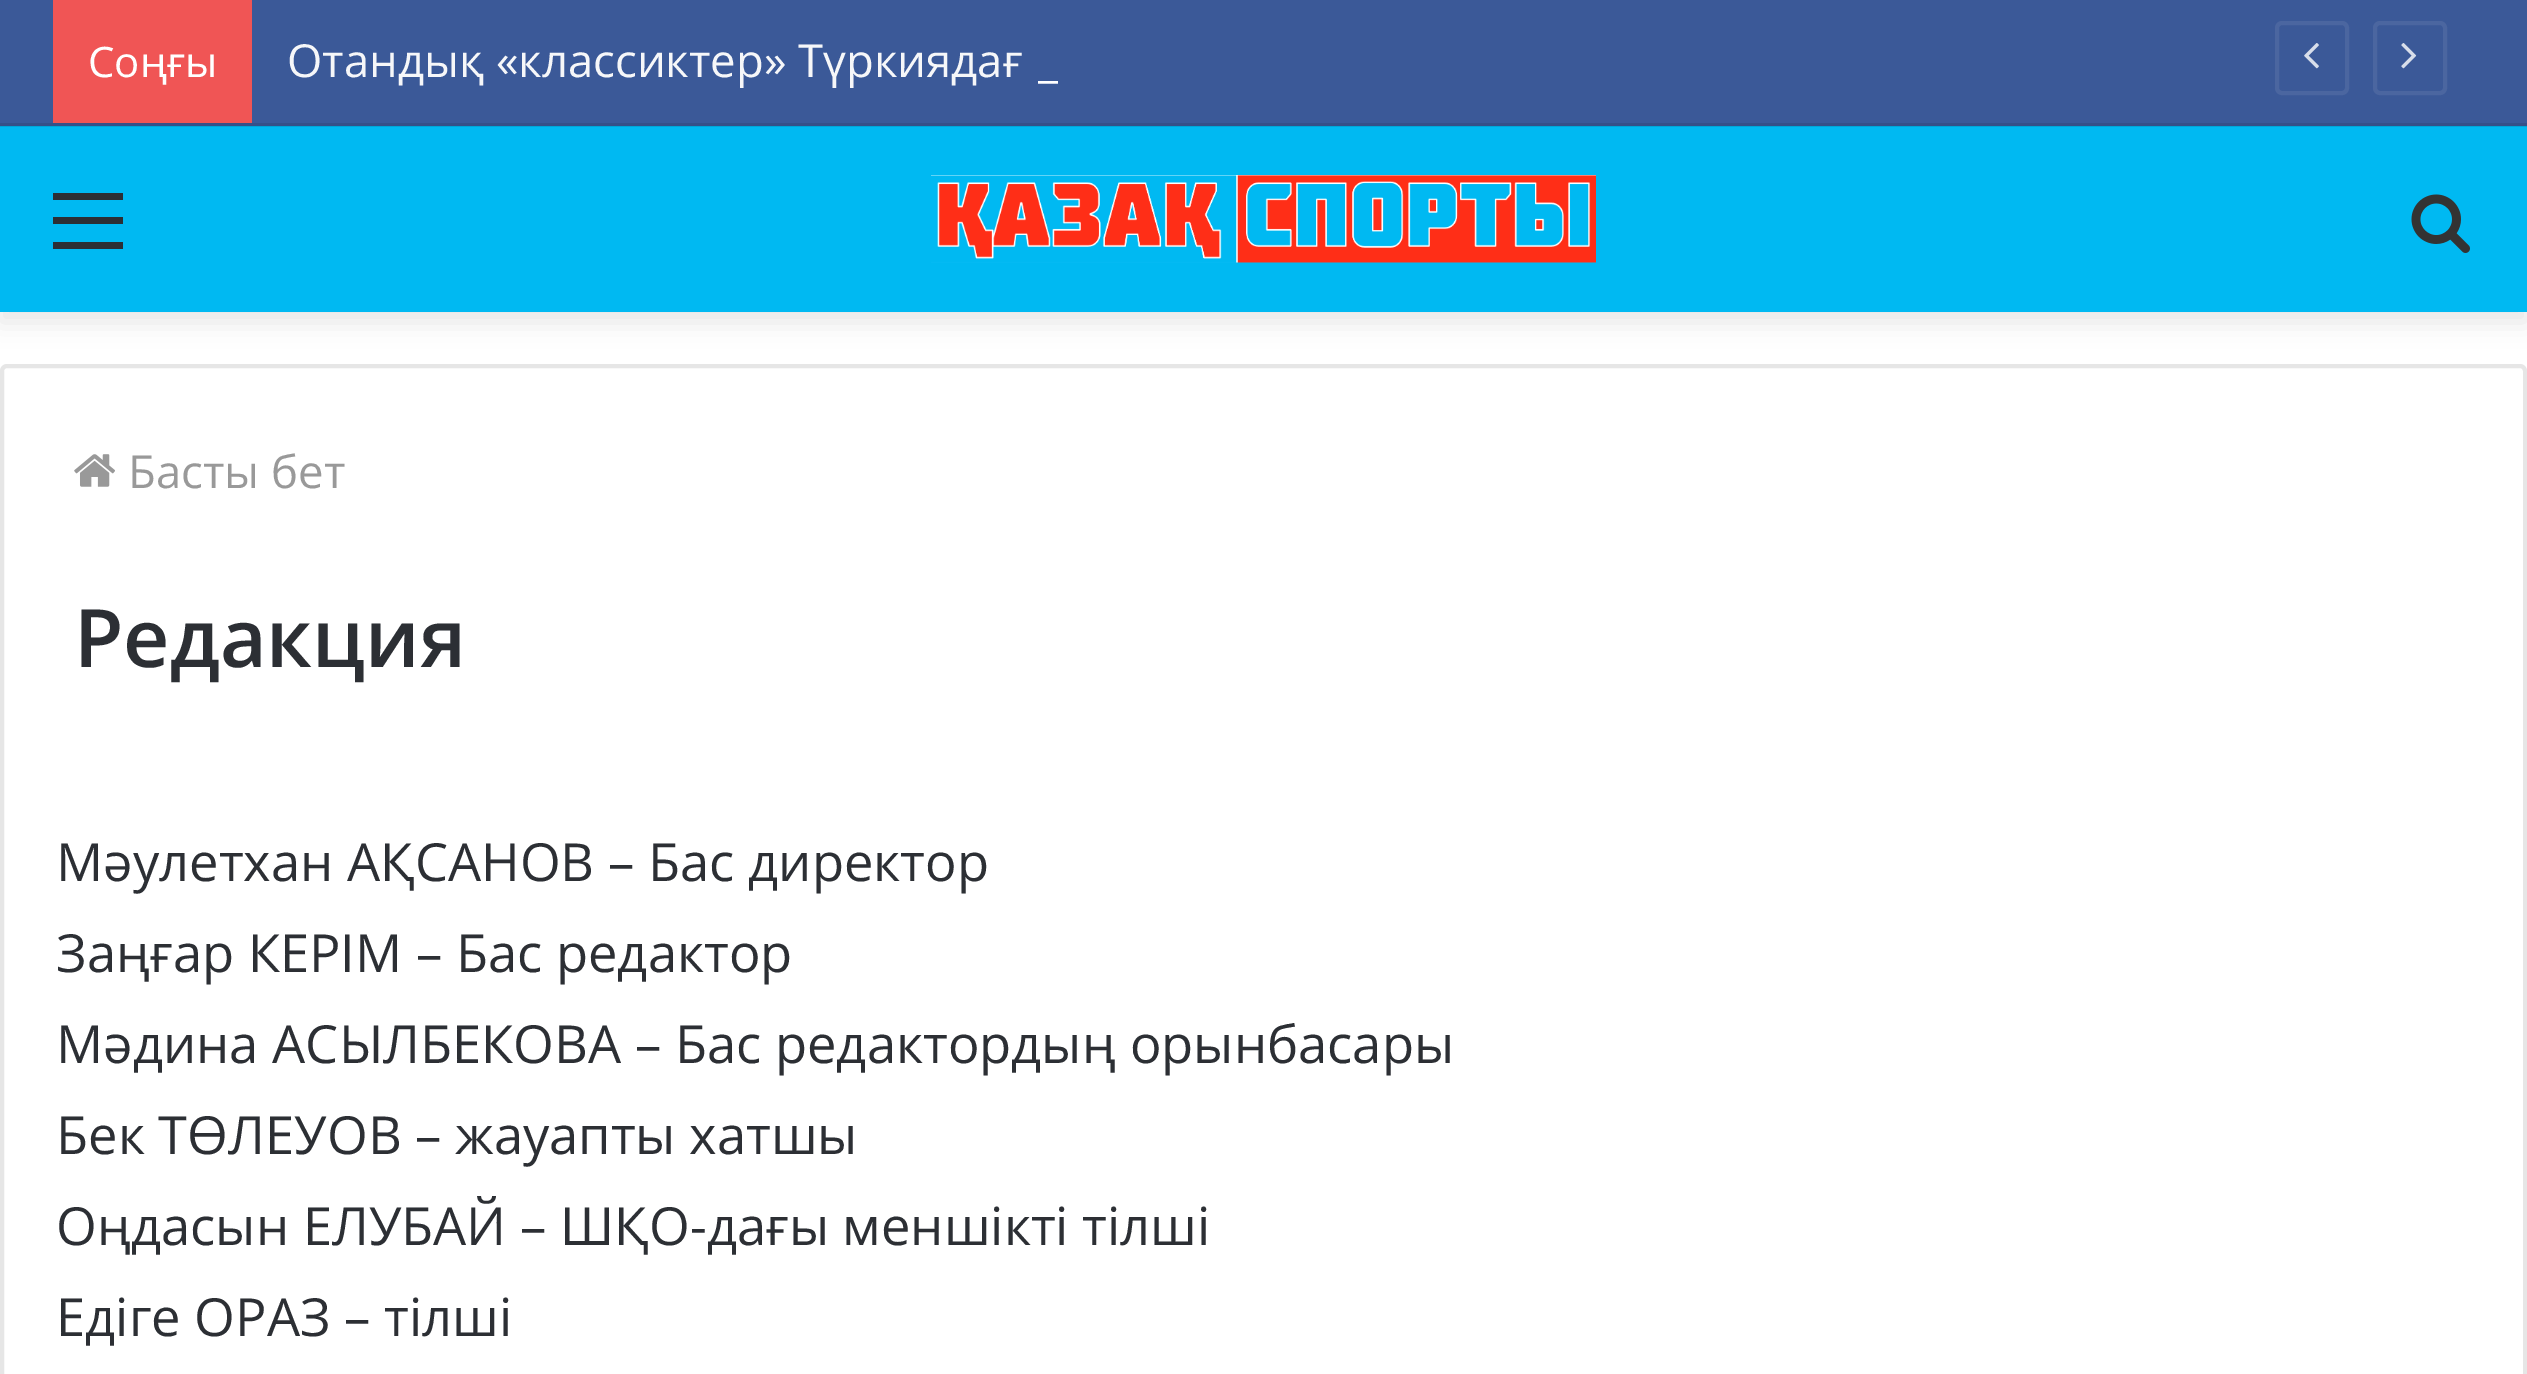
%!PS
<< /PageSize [2527 1374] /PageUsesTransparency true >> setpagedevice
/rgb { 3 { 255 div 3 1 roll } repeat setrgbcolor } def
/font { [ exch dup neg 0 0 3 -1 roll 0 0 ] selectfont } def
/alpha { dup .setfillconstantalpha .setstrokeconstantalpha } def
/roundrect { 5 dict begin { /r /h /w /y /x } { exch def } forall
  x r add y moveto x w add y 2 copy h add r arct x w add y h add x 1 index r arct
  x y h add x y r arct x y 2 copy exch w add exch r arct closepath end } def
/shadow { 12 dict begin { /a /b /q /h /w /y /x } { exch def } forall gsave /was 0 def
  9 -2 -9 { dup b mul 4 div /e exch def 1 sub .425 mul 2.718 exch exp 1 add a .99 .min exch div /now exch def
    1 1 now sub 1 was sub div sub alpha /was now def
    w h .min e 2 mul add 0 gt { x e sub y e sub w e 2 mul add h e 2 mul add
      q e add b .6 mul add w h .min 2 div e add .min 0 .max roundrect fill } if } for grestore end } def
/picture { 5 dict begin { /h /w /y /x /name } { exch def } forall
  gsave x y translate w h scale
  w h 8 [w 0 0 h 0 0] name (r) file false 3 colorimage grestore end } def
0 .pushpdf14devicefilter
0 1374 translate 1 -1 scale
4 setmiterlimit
255 255 255 rgb
0 0 2527 1374 rectfill
0 0 0 rgb
0 137 2527 185 0 12 0.1 shadow
[
  [0 0 2527 126 59 89 152]
  [0 126 2527 186 0 185 242]
] { aload pop rgb rectfill } forall
0.1 alpha
[
  [0 123 2527 4 0 0 0]
] { aload pop rgb rectfill } forall
1 alpha
[
  [53 0 199 123 240 85 85]
] { aload pop rgb rectfill } forall
75 102 160 rgb
4 setlinewidth
2277 23 70 70 5 roundrect stroke
(img/1.rgb) 2304 43 15 26 picture
2375 23 70 70 5 roundrect stroke
(img/2.rgb) 2401 43 16 26 picture
[
  [53 217 70 7 44 47 52]
  [53 193 70 7 44 47 52]
  [53 242 70 7 44 47 52]
] { aload pop rgb rectfill } forall
(img/3.rgb) 931 175 665 88 picture
(img/4.rgb) 2411 194 59 59 picture
230 230 230 rgb
2 366 2523 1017 5 roundrect stroke
(img/5.rgb) 74 454 41 33 picture
/OpenSans-Regular 42 font
255 255 255 rgb
88 77 moveto (Соңғы) show
/OpenSans-Regular 45.5 font
246 247 249 rgb
287 77 moveto (Отандық «классиктер» Түркиядағ) show
255 255 255 rgb
1038 77 moveto (_) show
153 153 153 rgb
128 488 moveto (Басты бет) show
/OpenSans-SemiBold 80.5 font
44 47 52 rgb
74 667 moveto (Редакция) show
/OpenSans-Regular 52.5 font
[
  [(Мәулетхан АҚСАНОВ – Бас директор) 56 881]
  [(Заңғар КЕРІМ – Бас редактор) 56 972]
  [(Мәдина АСЫЛБЕКОВА – Бас редактордың орынбасары) 56 1063]
  [(Бек ТӨЛЕУОВ – жауапты хатшы) 56 1154]
  [(Оңдасын ЕЛУБАЙ – ШҚО-дағы меншікті тілші) 56 1245]
  [(Eдіге ОРАЗ – тілші) 56 1336]
] { aload pop moveto show } forall
.poppdf14devicefilter showpage
